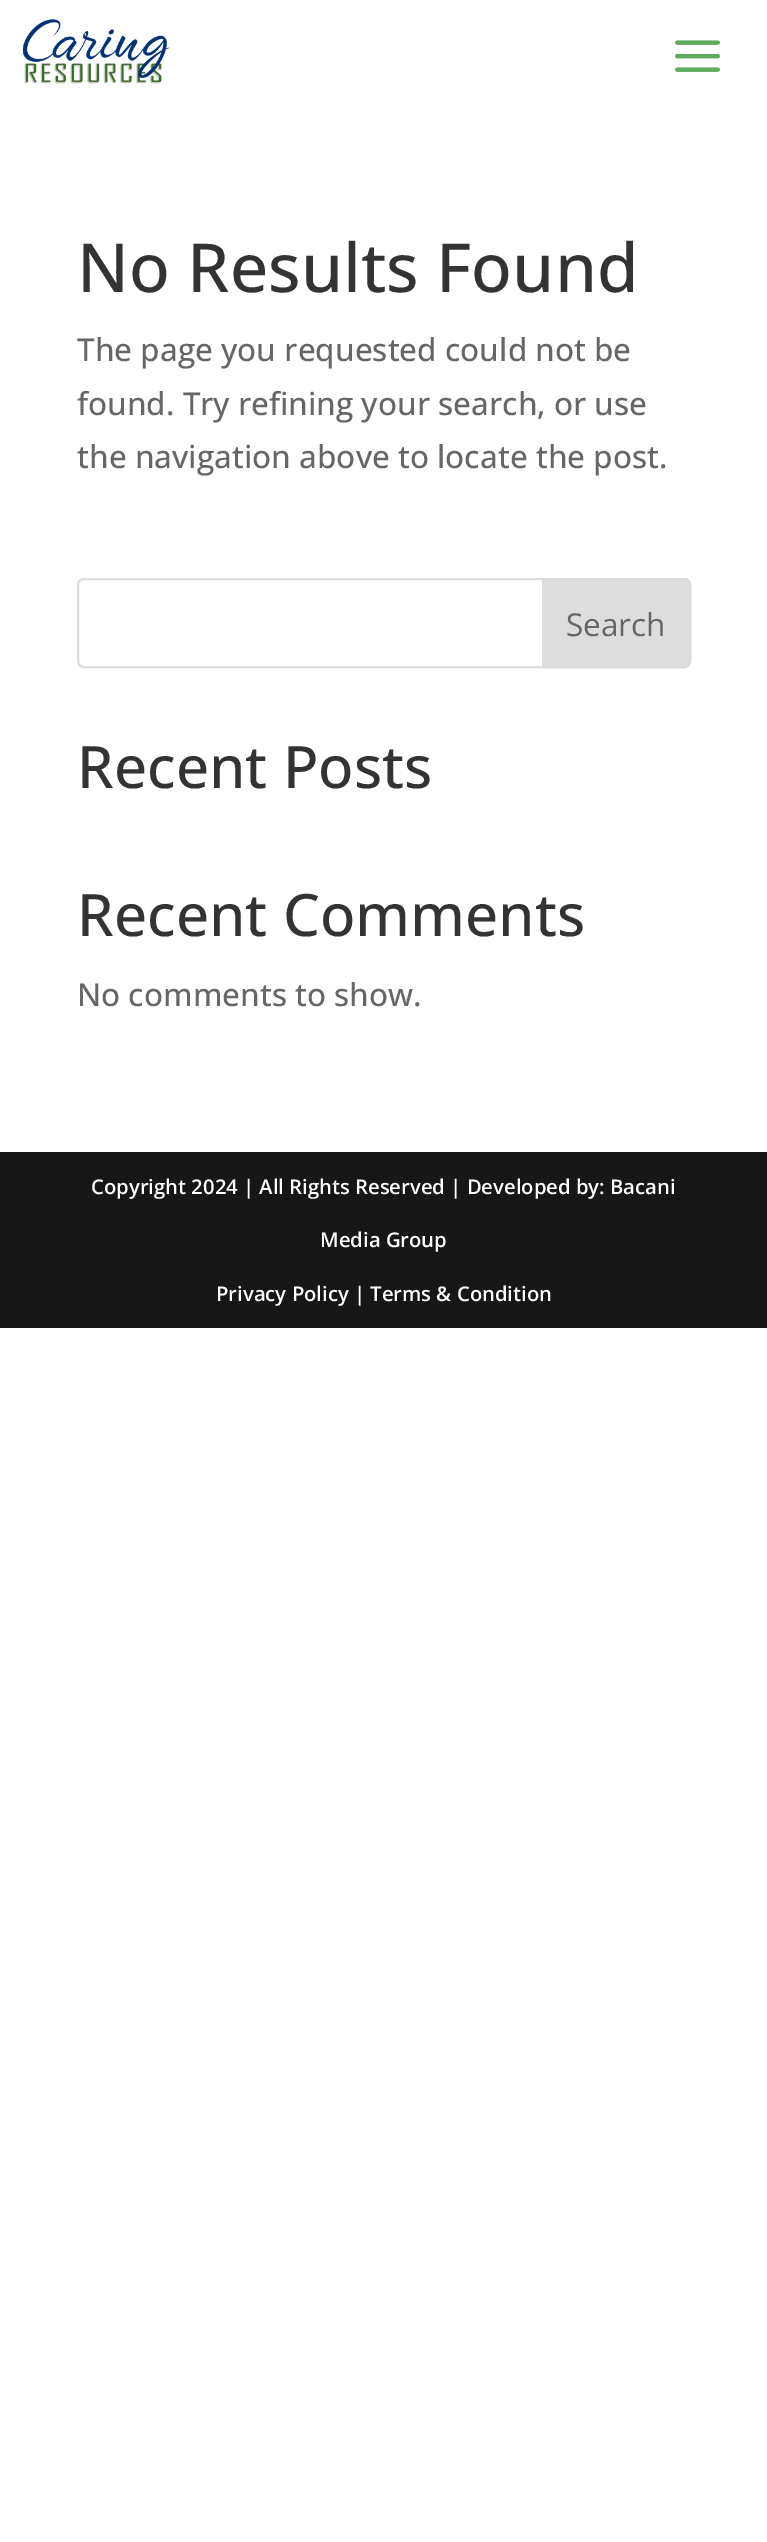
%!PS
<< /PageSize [767 2542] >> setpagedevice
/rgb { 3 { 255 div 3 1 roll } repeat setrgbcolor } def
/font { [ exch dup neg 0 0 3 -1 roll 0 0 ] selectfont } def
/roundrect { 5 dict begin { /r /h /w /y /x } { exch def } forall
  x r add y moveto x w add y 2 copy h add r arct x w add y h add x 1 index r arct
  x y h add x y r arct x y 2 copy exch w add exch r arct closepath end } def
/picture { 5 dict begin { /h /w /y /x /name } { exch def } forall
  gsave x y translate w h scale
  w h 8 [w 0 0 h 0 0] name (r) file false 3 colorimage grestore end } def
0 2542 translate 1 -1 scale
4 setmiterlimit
255 255 255 rgb
0 0 767 2542 rectfill
(img/1.rgb) 22 19 148 65 picture
(img/2.rgb) 675 40 45 32 picture
221 221 221 rgb
2 setlinewidth
78 579 612 88 6 roundrect stroke
543 579 moveto 684 579 lineto 687.5 579 690 581.5 690 585 curveto 690 661 lineto 690 664.5 687.5 667 684 667 curveto 543 667 lineto closepath gsave fill grestore
stroke
23 23 23 rgb
0 1152 767 176 rectfill
/OpenSans-Medium 67.5 font
51 51 51 rgb
77 292 moveto (No Results Found) show
/OpenSans-Medium 31.5 font
102 102 102 rgb
[
  [(The page you requested could not be) 77 361]
  [(found. Try refining your search, or use) 77 415]
  [(the navigation above to locate the post.) 77 468]
] { aload pop moveto show } forall
/OpenSans-Regular 31.5 font
566 636 moveto (Search) show
/OpenSans-Medium 58.5 font
51 51 51 rgb
77 788 moveto (Recent Posts) show
77 936 moveto (Recent Comments) show
/OpenSans-Medium 31.5 font
102 102 102 rgb
77 1006 moveto (No comments to show.) show
/OpenSans-SemiBold 20.25 font
255 255 255 rgb
[
  [(Copyright 2024 | All Rights Reserved | Developed by: Bacani) 91 1194]
  [(Media Group) 320 1247]
  [(Privacy Policy | Terms & Condition) 216 1301]
] { aload pop moveto show } forall
showpage
